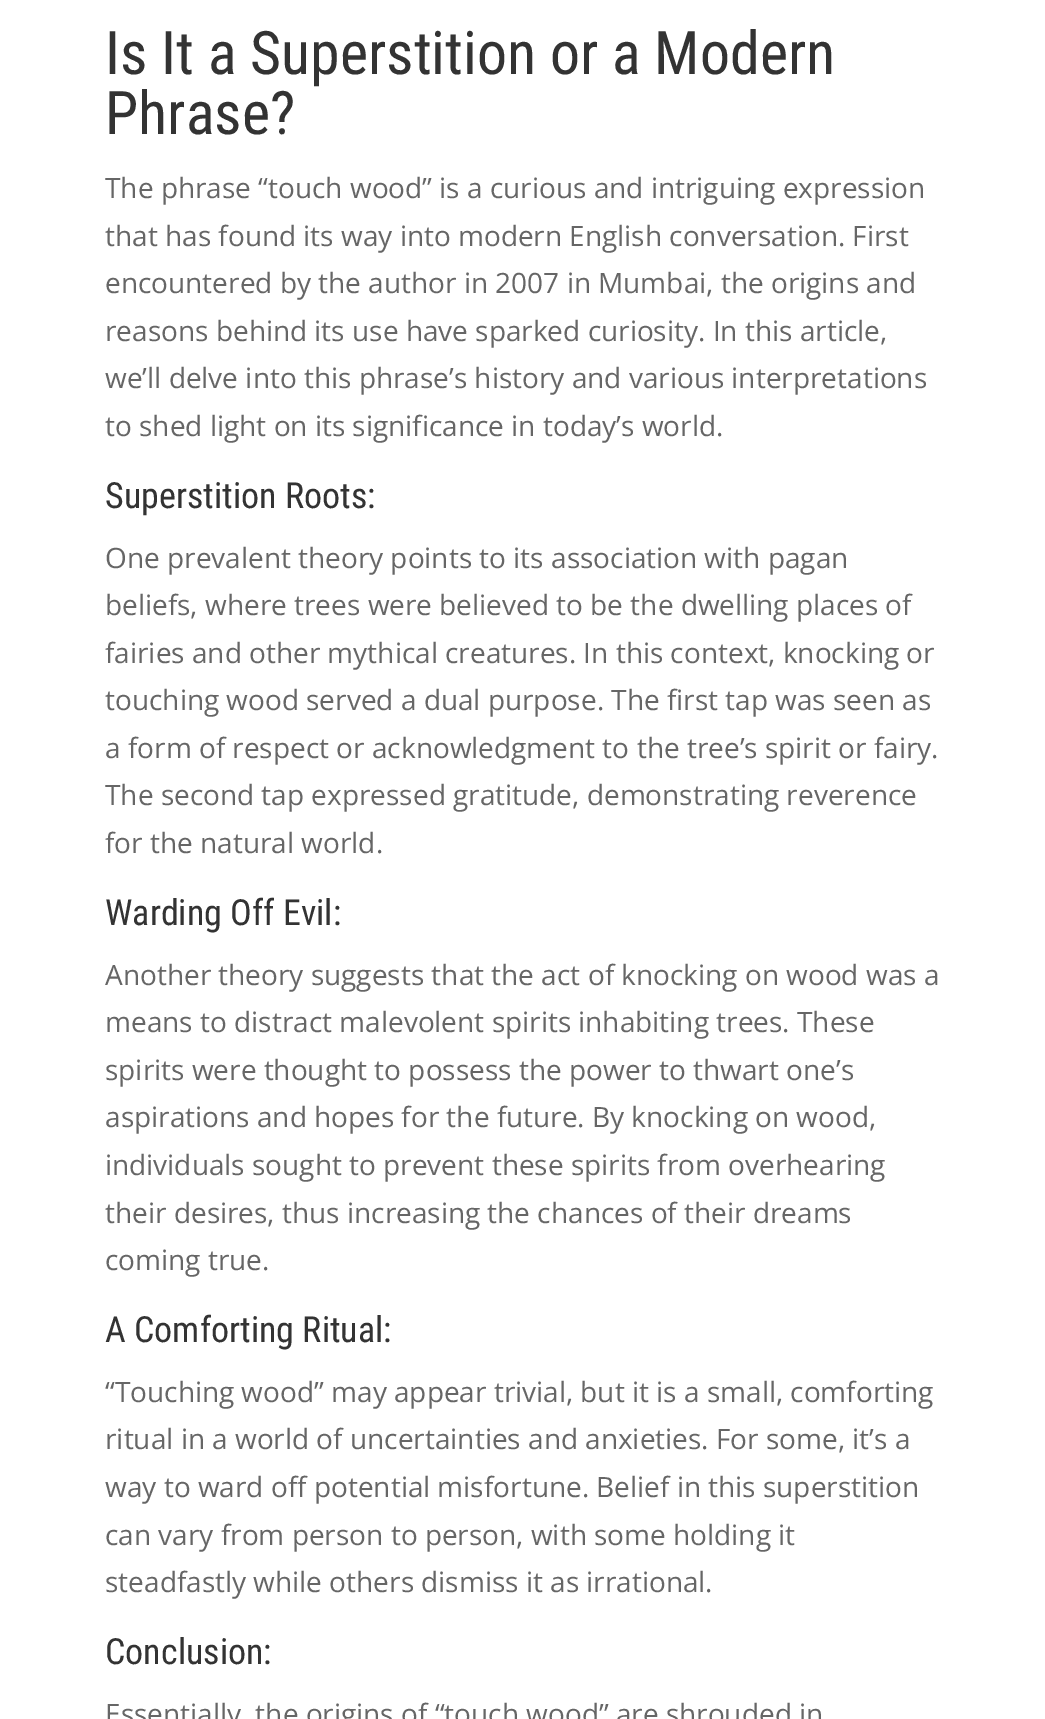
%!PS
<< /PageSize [1045 1719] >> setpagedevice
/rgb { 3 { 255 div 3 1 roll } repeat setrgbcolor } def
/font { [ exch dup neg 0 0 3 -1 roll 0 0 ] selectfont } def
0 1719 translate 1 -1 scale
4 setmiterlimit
255 255 255 rgb
0 0 1045 1719 rectfill
/RobotoCondensed-Regular 60 font
51 51 51 rgb
105 74 moveto (Is It a Superstition or a Modern) show
105 134 moveto (Phrase?) show
/OpenSans-Regular 28 font
102 102 102 rgb
[
  [(The phrase “touch wood” is a curious and intriguing expression) 105 198]
  [(that has found its way into modern English conversation. First) 105 246]
  [(encountered by the author in 2007 in Mumbai, the origins and) 105 293]
  [(reasons behind its use have sparked curiosity. In this article,) 105 341]
  [(we’ll delve into this phrase’s history and various interpretations) 105 388]
  [(to shed light on its significance in today’s world.) 105 436]
] { aload pop moveto show } forall
/RobotoCondensed-Regular 36 font
51 51 51 rgb
105 508 moveto (Superstition Roots:) show
/OpenSans-Regular 28 font
102 102 102 rgb
[
  [(One prevalent theory points to its association with pagan) 105 568]
  [(beliefs, where trees were believed to be the dwelling places of) 105 615]
  [(fairies and other mythical creatures. In this context, knocking or) 105 663]
  [(touching wood served a dual purpose. The first tap was seen as) 105 710]
  [(a form of respect or acknowledgment to the tree’s spirit or fairy.) 105 758]
  [(The second tap expressed gratitude, demonstrating reverence) 105 805]
  [(for the natural world.) 105 853]
] { aload pop moveto show } forall
/RobotoCondensed-Regular 36 font
51 51 51 rgb
105 925 moveto (Warding Off Evil:) show
/OpenSans-Regular 28 font
102 102 102 rgb
[
  [(Another theory suggests that the act of knocking on wood was a) 105 985]
  [(means to distract malevolent spirits inhabiting trees. These) 105 1032]
  [(spirits were thought to possess the power to thwart one’s) 105 1080]
  [(aspirations and hopes for the future. By knocking on wood,) 105 1127]
  [(individuals sought to prevent these spirits from overhearing) 105 1175]
  [(their desires, thus increasing the chances of their dreams) 105 1223]
  [(coming true.) 105 1270]
] { aload pop moveto show } forall
/RobotoCondensed-Regular 36 font
51 51 51 rgb
105 1342 moveto (A Comforting Ritual:) show
/OpenSans-Regular 28 font
102 102 102 rgb
[
  [(“Touching wood” may appear trivial, but it is a small, comforting) 105 1402]
  [(ritual in a world of uncertainties and anxieties. For some, it’s a) 105 1449]
  [(way to ward off potential misfortune. Belief in this superstition) 105 1497]
  [(can vary from person to person, with some holding it) 105 1545]
  [(steadfastly while others dismiss it as irrational.) 105 1592]
] { aload pop moveto show } forall
/RobotoCondensed-Regular 36 font
51 51 51 rgb
105 1664 moveto (Conclusion:) show
/OpenSans-Regular 28 font
102 102 102 rgb
105 1724 moveto (Essentially, the origins of “touch wood” are shrouded in) show
showpage
